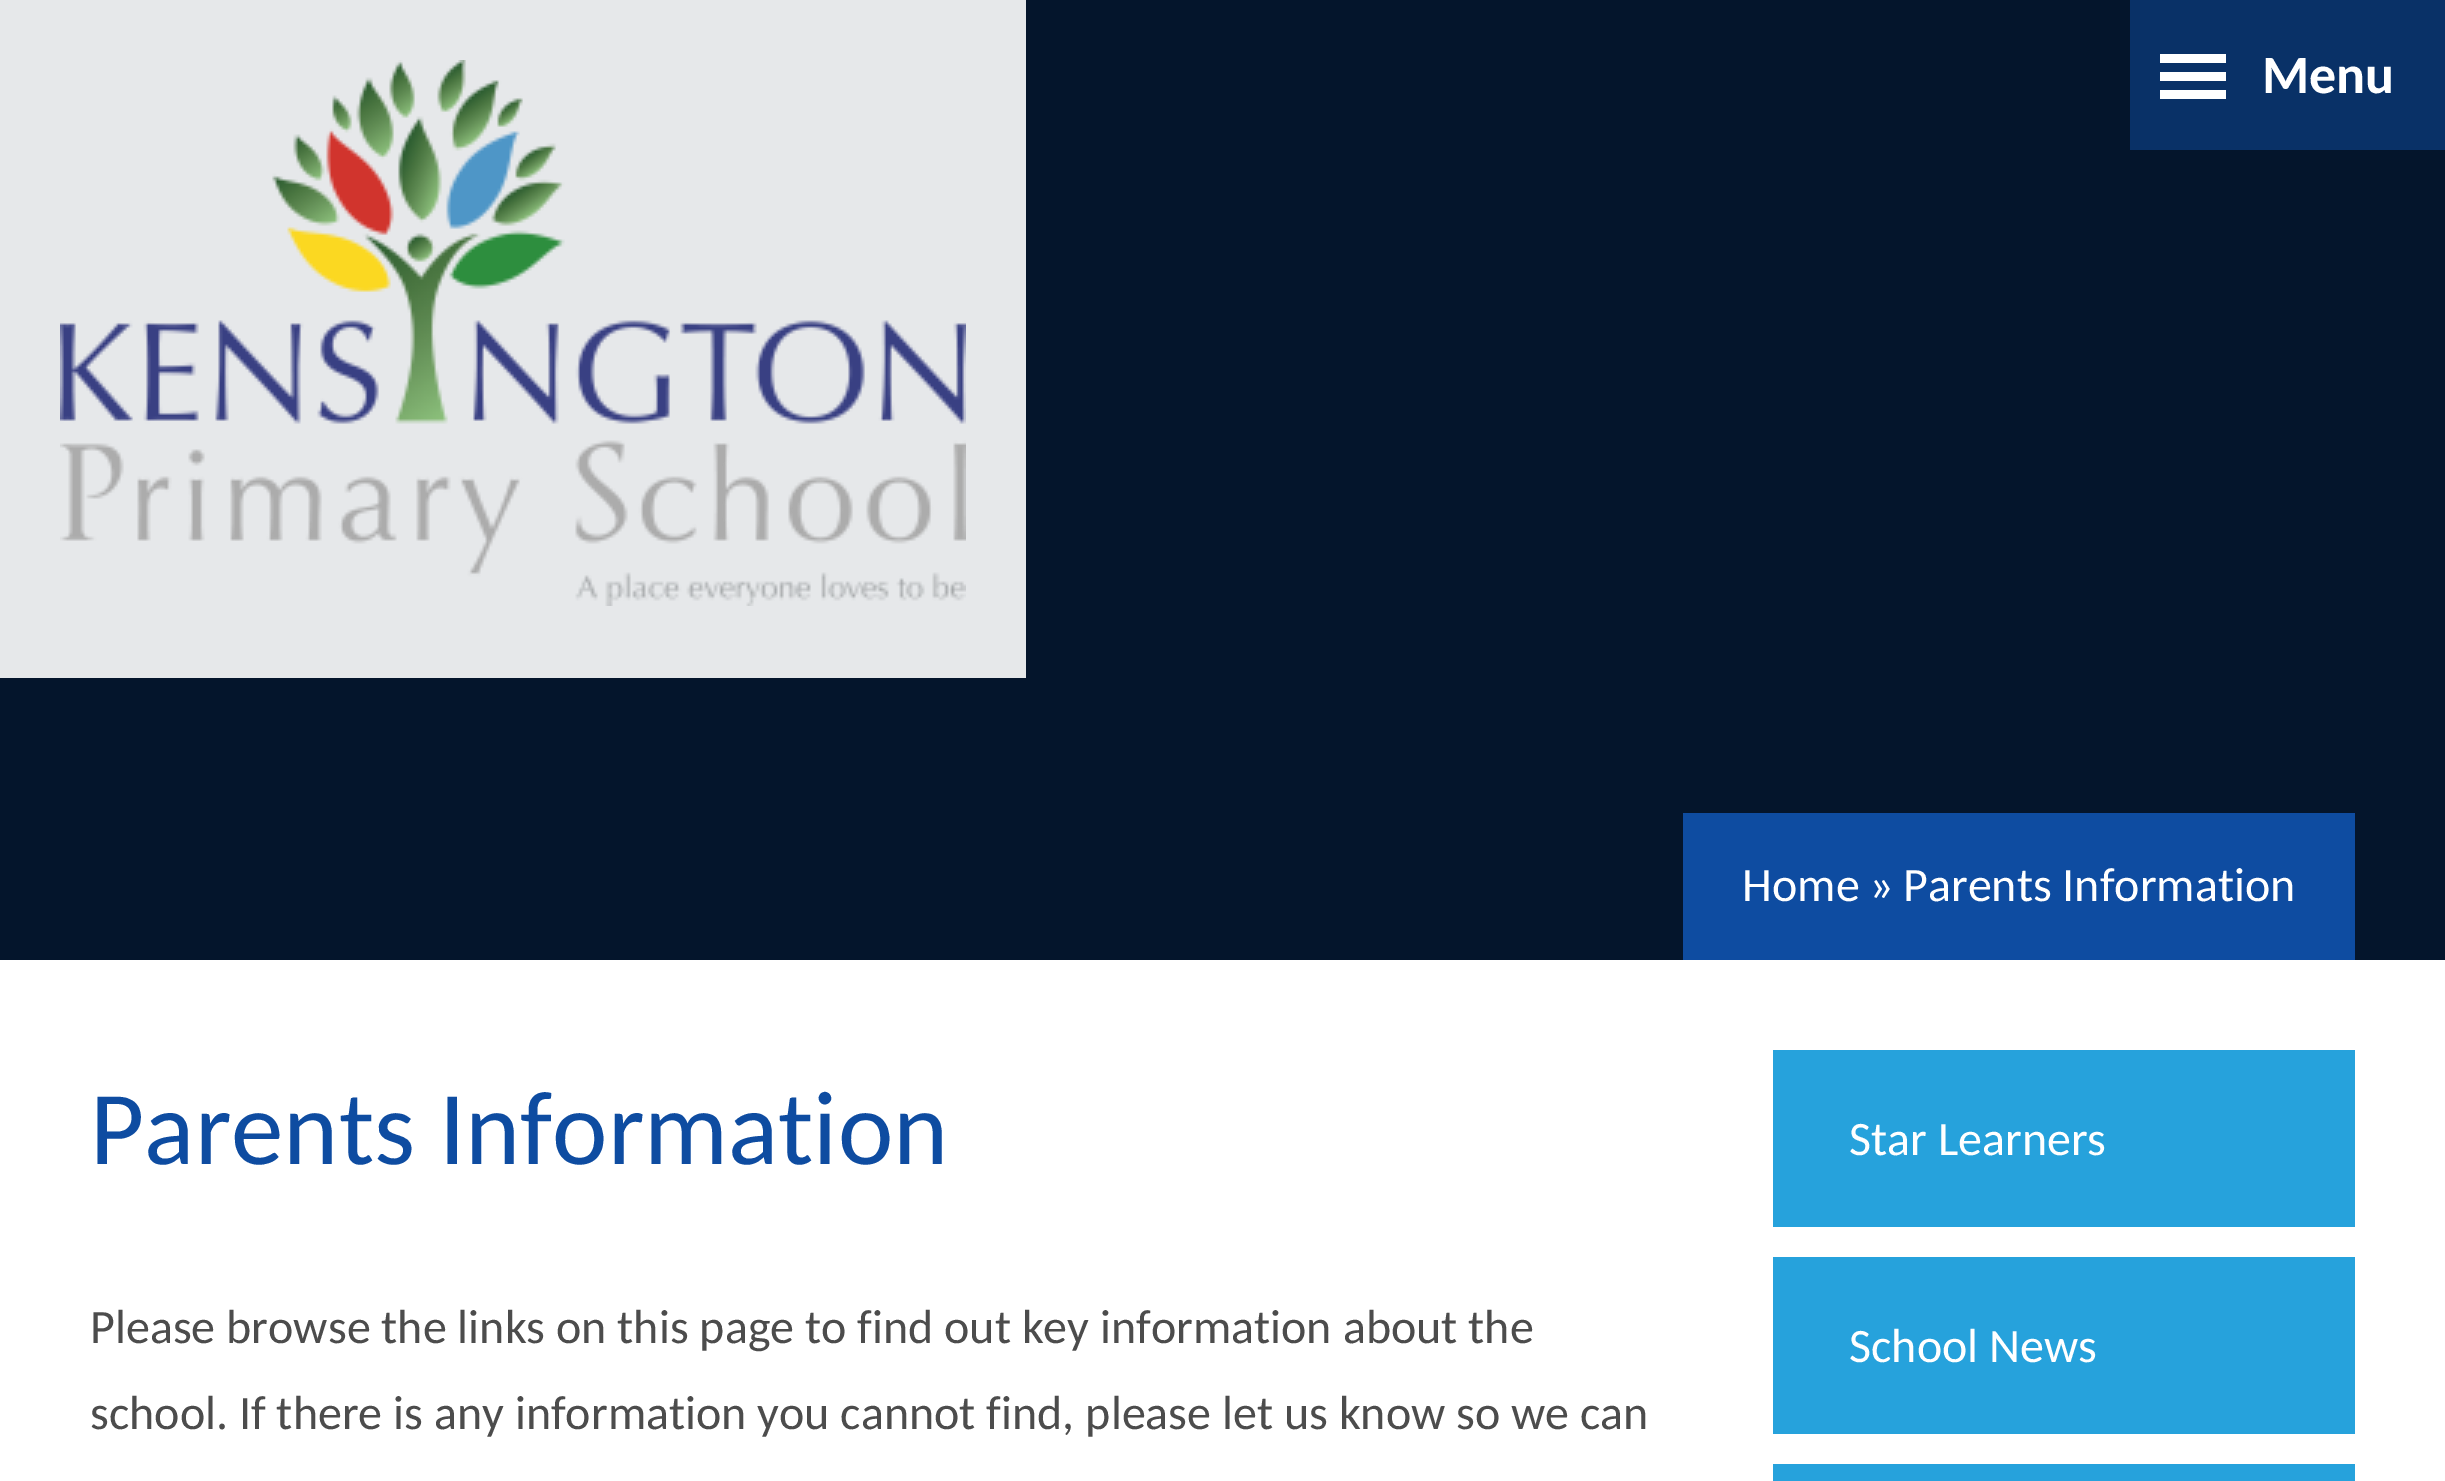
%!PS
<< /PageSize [2445 1481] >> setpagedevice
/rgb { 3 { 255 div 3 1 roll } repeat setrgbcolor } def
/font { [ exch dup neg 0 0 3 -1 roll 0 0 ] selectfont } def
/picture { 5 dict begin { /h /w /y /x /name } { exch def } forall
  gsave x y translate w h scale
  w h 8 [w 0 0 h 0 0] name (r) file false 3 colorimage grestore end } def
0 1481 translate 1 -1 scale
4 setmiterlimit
255 255 255 rgb
0 0 2445 1481 rectfill
4 21 44 rgb
0 0 2445 960 rectfill
230 232 234 rgb
0 0 1026 678 rectfill
(img/1.rgb) 60 60 906 546 picture
[
  [2130 0 315 150 9 49 103]
  [2160 54 66 9 255 255 255]
  [2160 90 66 9 255 255 255]
  [2160 72 66 9 255 255 255]
  [1683 813 672 147 14 76 161]
  [1773 1050 582 177 38 162 220]
  [1773 1257 582 177 38 162 220]
  [1773 1464 582 17 38 162 220]
] { aload pop rgb rectfill } forall
/Carlito-Bold 54 font
255 255 255 rgb
2262 93 moveto (Menu) show
/Carlito-Regular 48 font
[
  [(Home) 1742 901]
  [(») 1869 901]
  [(Parents Information) 1903 901]
] { aload pop moveto show } forall
/Carlito-Regular 105 font
14 76 161 rgb
90 1164 moveto (Parents Information) show
/Carlito-Regular 48 font
76 76 76 rgb
90 1343 moveto (Please browse the links on this page to find out key information about the) show
90 1429 moveto (school. If there is any information you cannot find, please let us know so we can) show
255 255 255 rgb
1849 1155 moveto (Star Learners) show
1849 1362 moveto (School News) show
showpage
